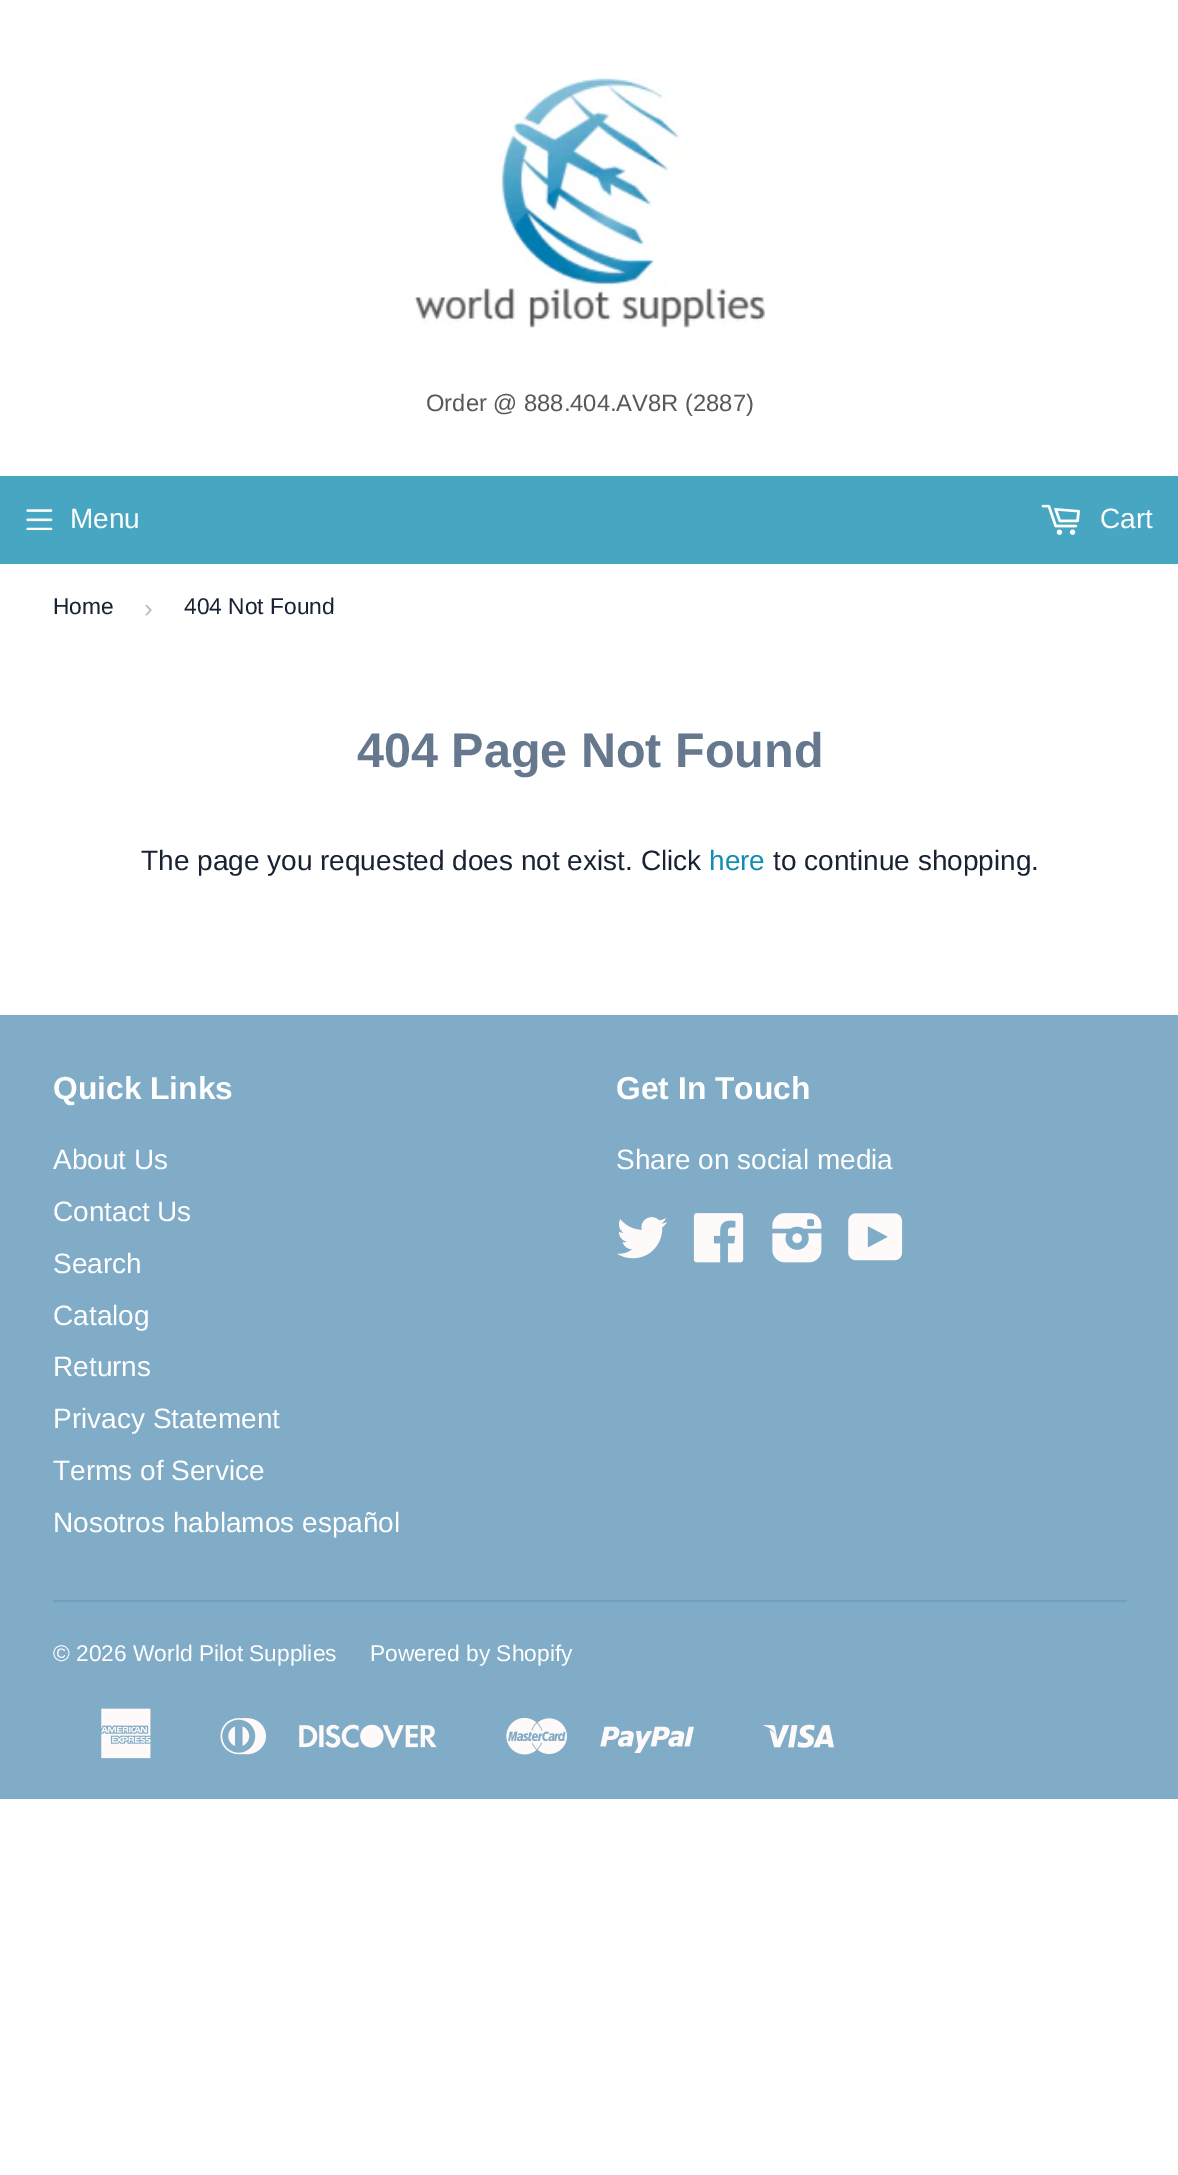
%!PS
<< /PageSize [1178 2175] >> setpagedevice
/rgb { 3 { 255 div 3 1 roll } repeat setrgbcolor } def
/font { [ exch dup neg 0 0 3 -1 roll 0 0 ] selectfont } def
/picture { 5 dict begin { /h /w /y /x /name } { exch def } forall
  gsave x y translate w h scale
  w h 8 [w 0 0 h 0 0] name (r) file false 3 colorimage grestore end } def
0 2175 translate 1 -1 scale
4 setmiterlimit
255 255 255 rgb
0 0 1178 2175 rectfill
(img/1.rgb) 414 78 351 250 picture
71 166 193 rgb
0 476 1178 88 rectfill
(img/2.rgb) 26 509 27 21 picture
(img/3.rgb) 1041 504 39 31 picture
129 172 199 rgb
0 1015 1178 784 rectfill
(img/4.rgb) 617 1217 51 42 picture
(img/5.rgb) 693 1213 51 50 picture
(img/6.rgb) 772 1213 50 50 picture
(img/7.rgb) 848 1213 55 48 picture
111 160 191 rgb
53 1600 1074 2 rectfill
(img/8.rgb) 101 1708 50 51 picture
(img/9.rgb) 220 1718 46 37 picture
(img/10.rgb) 299 1724 138 24 picture
(img/11.rgb) 506 1717 61 38 picture
(img/12.rgb) 600 1726 94 27 picture
(img/13.rgb) 763 1724 71 24 picture
/LiberationSans-Regular 23.75 font
88 88 88 rgb
426 411 moveto (Order @ 888.404.AV8R \(2887\)) show
/LiberationSans-Regular 28 font
255 255 255 rgb
70 528 moveto (Menu) show
1100 528 moveto (Cart) show
/LiberationSans-Regular 22.75 font
24 34 51 rgb
53 614 moveto (Home) show
/LiberationSans-Regular 26 font
187 187 187 rgb
144 617 moveto (›) show
/LiberationSans-Regular 22.75 font
24 34 51 rgb
184 614 moveto (404 Not Found) show
/LiberationSans-Bold 48.5 font
102 120 142 rgb
357 767 moveto (404 Page Not Found) show
/LiberationSans-Regular 28 font
24 34 51 rgb
141 870 moveto (The page you requested does not exist. Click) show
17 141 179 rgb
709 870 moveto (here) show
24 34 51 rgb
773 870 moveto (to continue shopping.) show
/LiberationSans-Bold 31.75 font
255 255 255 rgb
53 1099 moveto (Quick Links) show
/LiberationSans-Regular 28 font
[
  [(About Us) 53 1169]
  [(Contact Us) 53 1221]
  [(Search) 53 1273]
  [(Catalog) 53 1325]
  [(Returns) 53 1376]
  [(Privacy Statement) 53 1428]
  [(Terms of Service) 53 1480]
  [(Nosotros hablamos español) 53 1532]
] { aload pop moveto show } forall
/LiberationSans-Bold 31.75 font
616 1099 moveto (Get In Touch) show
/LiberationSans-Regular 28 font
616 1169 moveto (Share on social media) show
/LiberationSans-Regular 22.75 font
53 1661 moveto (© 2026 World Pilot Supplies) show
370 1661 moveto (Powered by Shopify) show
showpage
